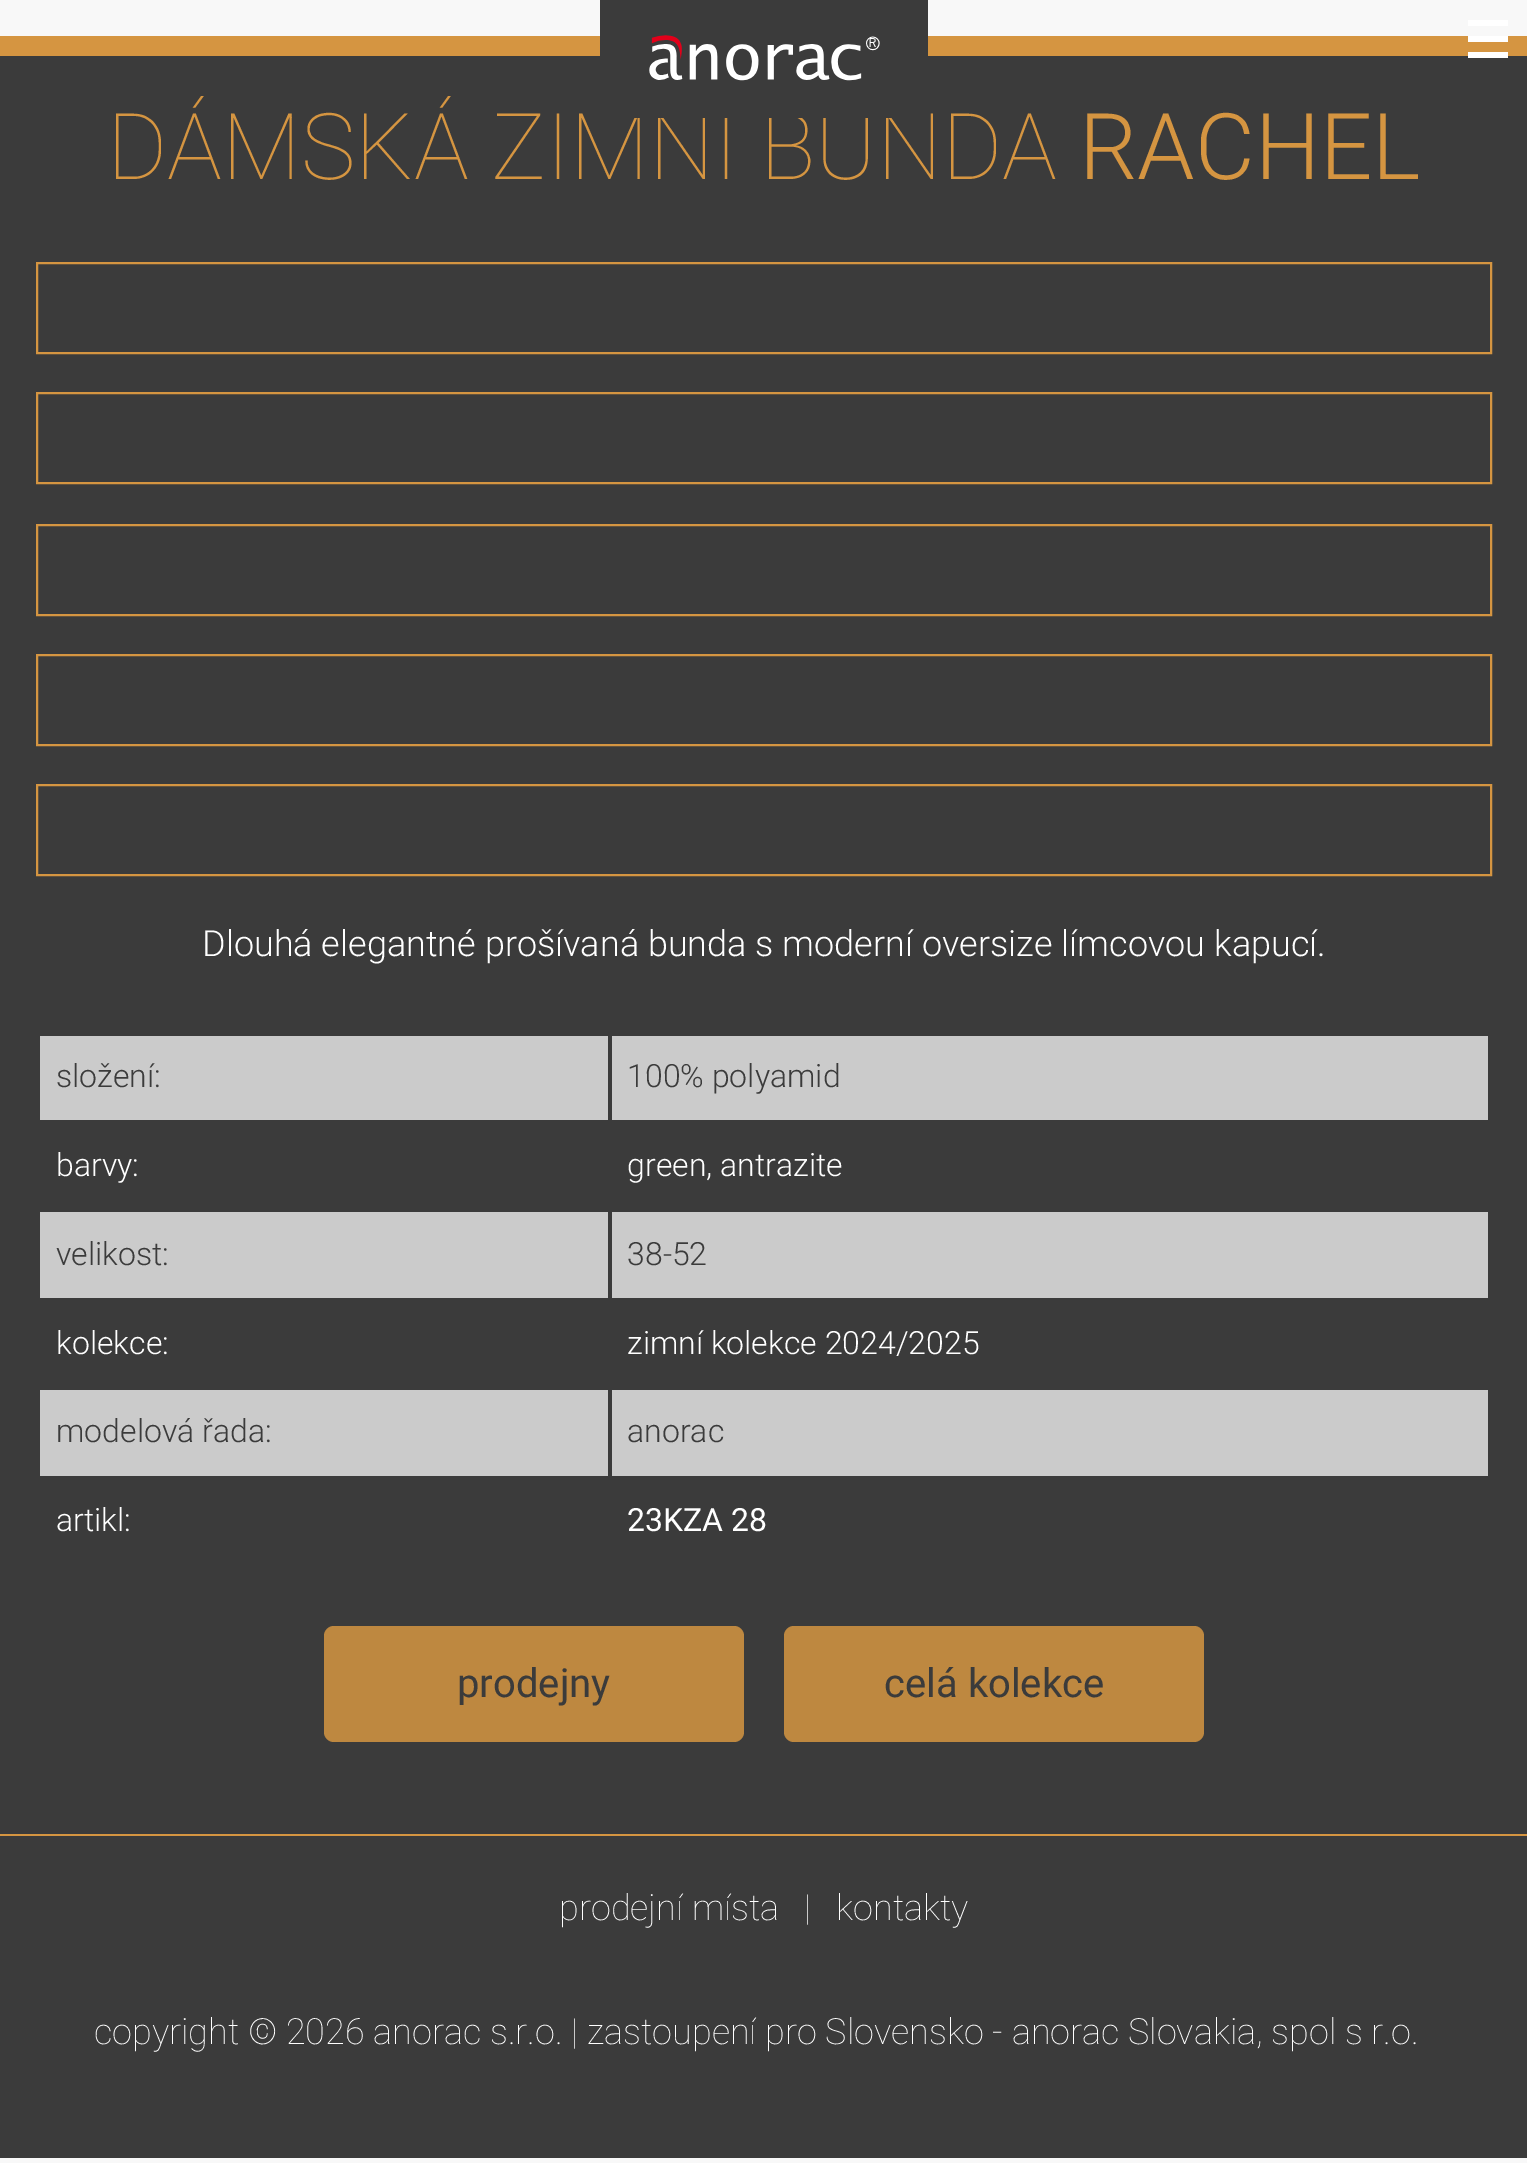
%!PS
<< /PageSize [1527 2163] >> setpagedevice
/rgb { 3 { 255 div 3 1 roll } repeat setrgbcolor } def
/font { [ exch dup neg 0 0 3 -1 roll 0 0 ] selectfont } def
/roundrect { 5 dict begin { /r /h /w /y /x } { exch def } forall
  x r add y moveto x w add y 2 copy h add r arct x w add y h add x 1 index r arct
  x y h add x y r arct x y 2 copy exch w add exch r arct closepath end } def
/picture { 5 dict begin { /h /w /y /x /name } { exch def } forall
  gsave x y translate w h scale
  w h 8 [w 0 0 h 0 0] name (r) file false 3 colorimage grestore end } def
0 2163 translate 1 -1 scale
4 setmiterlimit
248 248 248 rgb
0 0 1527 2163 rectfill
[
  [1468 20 40 6 255 255 255]
  [0 36 1527 20 213 149 65]
  [1468 36 40 6 255 255 255]
  [0 56 1527 1778 59 59 59]
  [1468 52 40 6 255 255 255]
] { aload pop rgb rectfill } forall
213 149 65 rgb
2 setlinewidth
37 263 1454 90 rectstroke
37 393 1454 90 rectstroke
37 525 1454 90 rectstroke
37 655 1454 90 rectstroke
37 785 1454 90 rectstroke
[
  [40 1036 1448 84 203 203 203]
  [608 1032 4 92 59 59 59]
  [40 1212 1448 86 203 203 203]
  [608 1208 4 94 59 59 59]
  [40 1390 1448 86 203 203 203]
  [608 1386 4 94 59 59 59]
] { aload pop rgb rectfill } forall
190 136 64 rgb
324 1626 420 116 10 roundrect fill
784 1626 420 116 10 roundrect fill
59 59 59 rgb
0 1836 1527 322 rectfill
213 149 65 rgb
0 1834 1527 2 rectfill
gsave
0 96 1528 1700 rectclip
/Roboto-Thin 92 font
107 179 moveto (DÁMSKÁ ZIMNÍ BUNDA) show
grestore
59 59 59 rgb
600 0 328 118 rectfill
(img/1.rgb) 649 35 231 46 picture
/Roboto-Light 92 font
213 149 65 rgb
1079 179 moveto (RACHEL) show
/Roboto-Light 36 font
255 255 255 rgb
202 956 moveto (Dlouhá elegantné prošívaná bunda s moderní oversize límcovou kapucí.) show
/Roboto-Light 32 font
59 59 59 rgb
56 1087 moveto (složení:) show
627 1087 moveto (100% polyamid) show
255 255 255 rgb
56 1176 moveto (barvy:) show
627 1176 moveto (green, antrazite) show
59 59 59 rgb
56 1265 moveto (velikost:) show
627 1265 moveto (38-52) show
255 255 255 rgb
56 1354 moveto (kolekce:) show
627 1354 moveto (zimní kolekce 2024/2025) show
59 59 59 rgb
56 1442 moveto (modelová řada:) show
627 1442 moveto (anorac) show
255 255 255 rgb
56 1531 moveto (artikl:) show
/Roboto-Regular 32 font
627 1531 moveto (23KZA 28) show
/Roboto-Regular 40 font
59 59 59 rgb
457 1697 moveto (prodejny) show
884 1697 moveto (celá kolekce) show
/Roboto-Thin 36 font
255 255 255 rgb
[
  [(prodejní místa) 559 1920]
  [(|) 804 1920]
  [(kontakty) 836 1920]
  [(copyright © 2026 anorac s.r.o. | zastoupení pro Slovensko - anorac Slovakia, spol s r.o.) 94 2044]
] { aload pop moveto show } forall
showpage
